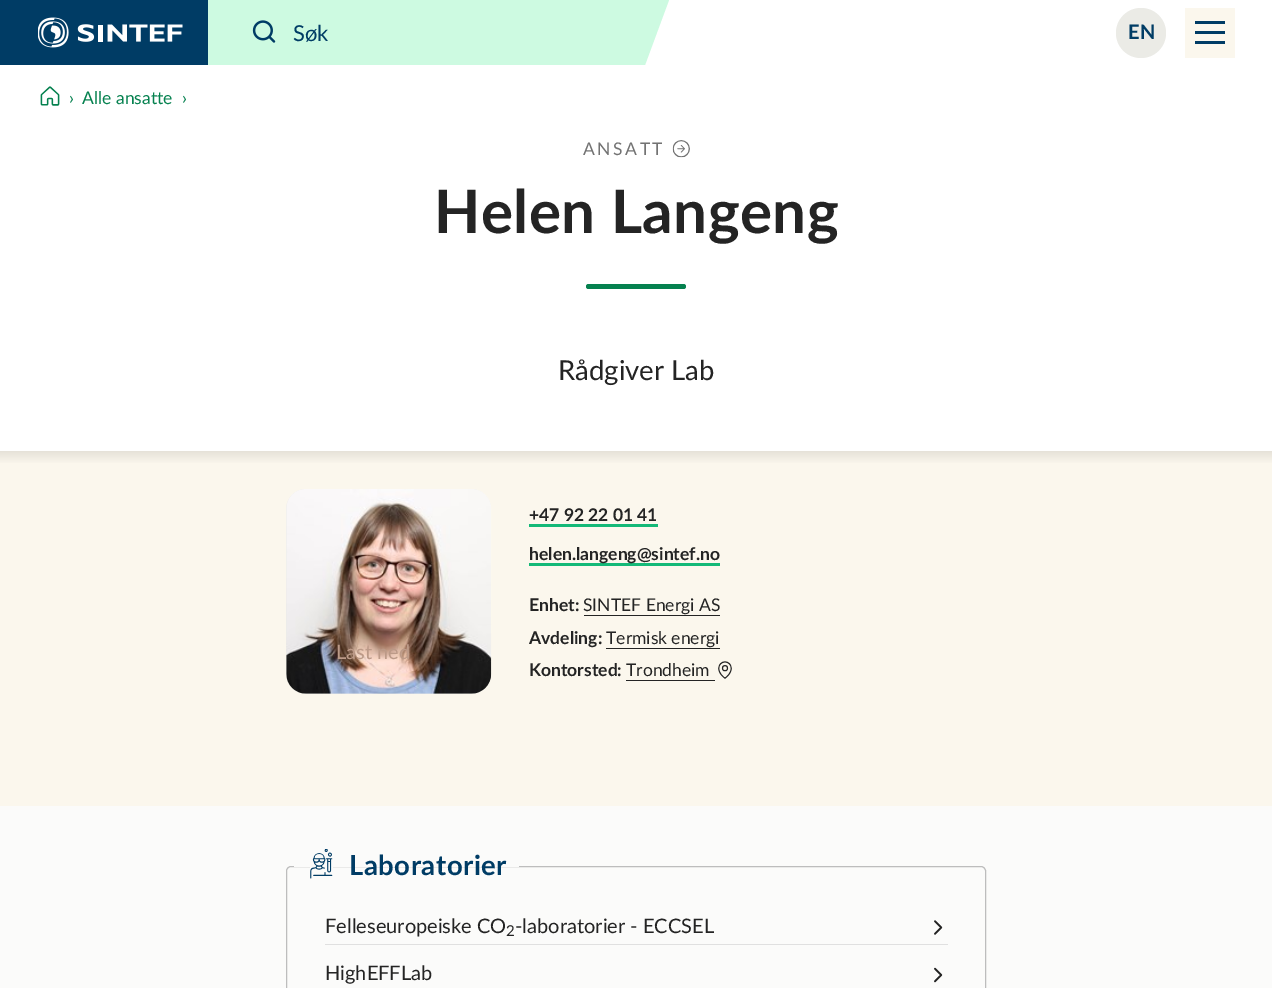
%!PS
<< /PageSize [1272 988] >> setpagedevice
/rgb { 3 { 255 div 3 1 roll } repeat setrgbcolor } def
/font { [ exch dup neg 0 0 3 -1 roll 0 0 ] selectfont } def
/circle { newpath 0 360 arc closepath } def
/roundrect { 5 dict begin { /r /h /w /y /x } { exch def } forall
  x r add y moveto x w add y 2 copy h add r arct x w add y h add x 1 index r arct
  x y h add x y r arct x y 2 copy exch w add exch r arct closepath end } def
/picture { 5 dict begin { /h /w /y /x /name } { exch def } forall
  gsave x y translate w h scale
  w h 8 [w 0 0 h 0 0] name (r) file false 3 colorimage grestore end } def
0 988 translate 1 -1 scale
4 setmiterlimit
255 255 255 rgb
0 0 1272 988 rectfill
0 60 101 rgb
0 0 208 65 rectfill
(img/1.rgb) 38 17 145 31 picture
205 250 225 rgb
231 0 moveto 669 0 lineto 645 65 lineto 208 65 lineto closepath fill
(img/2.rgb) 252 20 24 23 picture
208 0 23 65 rectfill
235 235 230 rgb
1141 33 25 circle fill
[
  [1185 8 50 50 251 247 237]
  [1195 21 30 3 0 60 101]
  [1195 31 30 3 0 60 101]
  [1195 41 30 3 0 60 101]
] { aload pop rgb rectfill } forall
(img/3.rgb) 40 86 20 20 picture
(img/4.rgb) 672 140 18 18 picture
5 129 79 rgb
586 284 100 5 2.5 roundrect fill
gsave 0 451 moveto 1272 451 lineto 1272 464 lineto 0 464 lineto closepath clip newpath
<< /ShadingType 2 /ColorSpace /DeviceRGB /Coords [636 451 636 464] /Extend [true true] /Function << /FunctionType 2 /Domain [0 1] /C0 [0.902 0.886 0.851] /C1 [0.984 0.969 0.929] /N 1 >> >> shfill grestore
251 247 237 rgb
0 464 1272 342 rectfill
235 235 230 rgb
286 489 205 205 20 roundrect fill
(img/5.rgb) 286 489 206 205 picture
[
  [529 524 129 3 20 185 120]
  [529 563 191 3 20 185 120]
  [584 615 136 1 36 36 36]
  [606 648 114 1 36 36 36]
  [626 680 89 1 36 36 36]
] { aload pop rgb rectfill } forall
(img/6.rgb) 718 661 14 18 picture
251 251 250 rgb
0 806 1272 182 rectfill
189 189 189 rgb
286.5 866.5 699 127 4.5 roundrect stroke
251 251 250 rgb
294 866 225 1 rectfill
(img/7.rgb) 310 849 23 30 picture
224 224 224 rgb
325 944 623 1 rectfill
(img/8.rgb) 934 920 9 15 picture
(img/9.rgb) 934 967 9 16 picture
/Lato-Regular 22 font
0 60 101 rgb
293 41 moveto (Søk) show
/Lato-Bold 20 font
1128 39 moveto (EN) show
/Lato-Regular 17.5 font
5 129 79 rgb
[
  [(›) 69 104]
  [(Alle ansatte) 82 104]
  [(›) 182 104]
] { aload pop moveto show } forall
115 115 115 rgb
583 155 moveto 2.5 0 (ANSATT) ashow
/Lato-Bold 60 font
36 36 36 rgb
434 233 moveto 0.5 0 (Helen Langeng) ashow
/Lato-Regular 27.5 font
558 380 moveto (Rådgiver Lab) show
/Lato-Regular 20 font
188 154 136 rgb
336 659 moveto (Last ned) show
/Lato-Bold 17.5 font
36 36 36 rgb
[
  [(+47 92 22 01 41) 529 521]
  [(helen.langeng@sintef.no) 529 560]
  [(Enhet:) 529 611]
] { aload pop moveto show } forall
/Lato-Regular 17.5 font
583 611 moveto (SINTEF Energi AS) show
/Lato-Bold 17.5 font
529 644 moveto (Avdeling:) show
/Lato-Regular 17.5 font
606 644 moveto (Termisk energi) show
/Lato-Bold 17.5 font
529 676 moveto (Kontorsted:) show
/Lato-Regular 17.5 font
626 676 moveto (Trondheim) show
/Lato-Bold 27.5 font
0 60 101 rgb
349 875 moveto 0.5 0 (Laboratorier) ashow
/Lato-Regular 20 font
36 36 36 rgb
325 933 moveto (Felleseuropeiske CO) show
/Lato-Regular 15 font
506 936 moveto (2) show
/Lato-Regular 20 font
515 933 moveto (-laboratorier - ECCSEL) show
325 980 moveto (HighEFFLab) show
showpage
